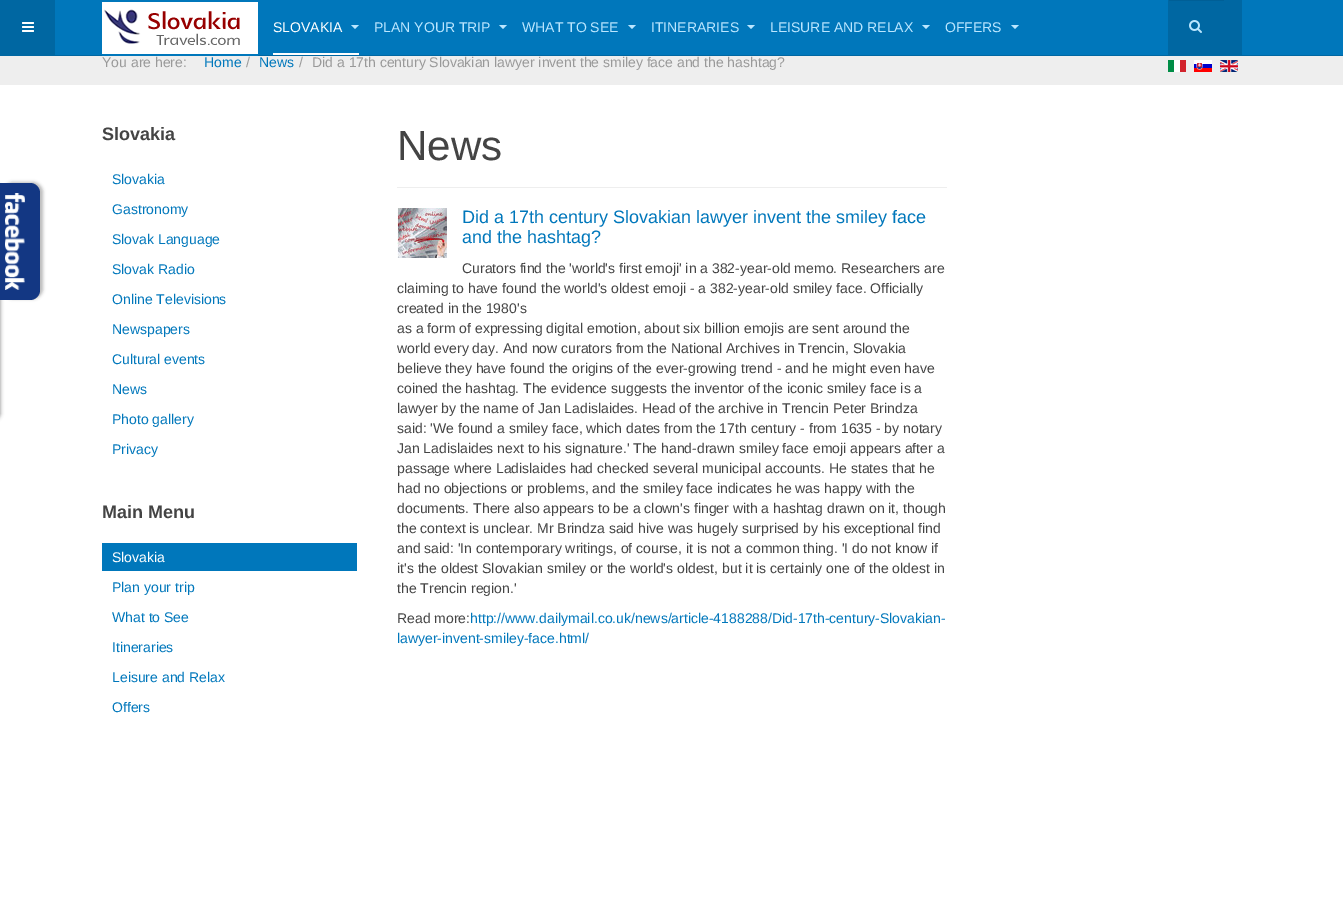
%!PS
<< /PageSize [1343 914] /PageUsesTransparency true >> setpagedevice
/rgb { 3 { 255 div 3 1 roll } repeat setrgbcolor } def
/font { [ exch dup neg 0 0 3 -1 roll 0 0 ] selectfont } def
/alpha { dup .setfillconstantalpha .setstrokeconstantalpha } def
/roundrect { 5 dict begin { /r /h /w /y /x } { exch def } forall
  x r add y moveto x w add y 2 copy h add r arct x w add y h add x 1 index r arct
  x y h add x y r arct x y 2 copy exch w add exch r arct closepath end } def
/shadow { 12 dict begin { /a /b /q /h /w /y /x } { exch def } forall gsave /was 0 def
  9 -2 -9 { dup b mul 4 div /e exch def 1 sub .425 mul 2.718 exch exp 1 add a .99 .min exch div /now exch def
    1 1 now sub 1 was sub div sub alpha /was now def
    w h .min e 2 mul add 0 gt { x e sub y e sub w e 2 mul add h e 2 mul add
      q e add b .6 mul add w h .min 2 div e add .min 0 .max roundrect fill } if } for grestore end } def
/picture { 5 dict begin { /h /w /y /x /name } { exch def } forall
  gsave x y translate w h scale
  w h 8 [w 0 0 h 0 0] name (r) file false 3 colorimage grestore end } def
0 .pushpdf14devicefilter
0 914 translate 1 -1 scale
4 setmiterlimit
255 255 255 rgb
0 0 1343 914 rectfill
0 0 0 rgb
-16 183 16 237 10 2 0.5 shadow
3 182 40 117 10 1.5 0.25 shadow
19 55 131 rgb
0 183 moveto 30 183 lineto 35.5 183 40 187.5 40 193 curveto 40 290 lineto 40 295.5 35.5 300 30 300 curveto 0 300 lineto closepath fill
(img/1.rgb) 5 193 20 97 picture
[
  [55 0 1288 55 0 119 187]
  [0 55 1343 1 0 103 162]
  [0 0 55 55 0 103 162]
] { aload pop rgb rectfill } forall
(img/2.rgb) 22 22 12 10 picture
(img/3.rgb) 102 0 156 56 picture
1168 0 74 55 rectfill
0 95 150 rgb
1169 0 55 1 rectfill
(img/4.rgb) 1189 20 13 13 picture
238 238 238 rgb
0 56 1343 29 rectfill
(img/5.rgb) 1168 60 18 12 picture
(img/6.rgb) 1194 60 18 12 picture
(img/7.rgb) 1220 60 18 12 picture
255 255 255 rgb
273 53 86 2 rectfill
187 230 255 rgb
351 25 moveto 359 25 lineto 355 29 lineto closepath fill
499 25 moveto 507 25 lineto 503 29 lineto closepath fill
628 25 moveto 636 25 lineto 632 29 lineto closepath fill
747 25 moveto 755 25 lineto 751 29 lineto closepath fill
922 25 moveto 930 25 lineto 926 29 lineto closepath fill
1011 25 moveto 1019 25 lineto 1015 29 lineto closepath fill
0 119 187 rgb
102 543 255 28 rectfill
238 238 238 rgb
397 187 550 1 rectfill
(img/8.rgb) 397 208 50 50 picture
/LiberationSans-Regular 14 font
255 255 255 rgb
273 32 moveto (SLOVAKIA) show
187 230 255 rgb
[
  [(PLAN YOUR TRIP) 374 32]
  [(WHAT TO SEE) 522 32]
  [(ITINERARIES) 651 32]
  [(LEISURE AND RELAX) 770 32]
  [(OFFERS) 945 32]
] { aload pop moveto show } forall
153 153 153 rgb
102 67 moveto (You are here:) show
0 119 187 rgb
204 67 moveto (Home) show
153 153 153 rgb
246 67 moveto (/) show
0 119 187 rgb
259 67 moveto (News) show
153 153 153 rgb
299 67 moveto (/) show
312 67 moveto (Did a 17th century Slovakian lawyer invent the smiley face and the hashtag?) show
/LiberationSans-Bold 18 font
68 68 68 rgb
102 140 moveto (Slovakia) show
/LiberationSans-Regular 14 font
0 119 187 rgb
[
  [(Slovakia) 112 184]
  [(Gastronomy) 112 214]
  [(Slovak Language) 112 244]
  [(Slovak Radio) 112 274]
  [(Online Televisions) 112 304]
  [(Newspapers) 112 334]
  [(Cultural events) 112 364]
  [(News) 112 394]
  [(Photo gallery) 112 424]
  [(Privacy) 112 454]
] { aload pop moveto show } forall
/LiberationSans-Bold 18 font
68 68 68 rgb
102 518 moveto (Main Menu) show
/LiberationSans-Regular 14 font
255 255 255 rgb
112 562 moveto (Slovakia) show
0 119 187 rgb
[
  [(Plan your trip) 112 592]
  [(What to See) 112 622]
  [(Itineraries) 112 652]
  [(Leisure and Relax) 112 682]
  [(Offers) 112 712]
] { aload pop moveto show } forall
/LiberationSans-Regular 42 font
68 68 68 rgb
397 160 moveto (News) show
/LiberationSans-Regular 18 font
0 119 187 rgb
462 223 moveto (Did a 17th century Slovakian lawyer invent the smiley face) show
462 243 moveto (and the hashtag?) show
/LiberationSans-Regular 14 font
68 68 68 rgb
[
  [(Curators find the 'world's first emoji' in a 382-year-old memo. Researchers are) 462 273]
  [(claiming to have found the world's oldest emoji - a 382-year-old smiley face. Officially) 397 293]
  [(created in the 1980's) 397 313]
  [(as a form of expressing digital emotion, about six billion emojis are sent around the) 397 333]
  [(world every day. And now curators from the National Archives in Trencin, Slovakia) 397 353]
  [(believe they have found the origins of the ever-growing trend - and he might even have) 397 373]
  [(coined the hashtag. The evidence suggests the inventor of the iconic smiley face is a) 397 393]
  [(lawyer by the name of Jan Ladislaides. Head of the archive in Trencin Peter Brindza) 397 413]
  [(said: 'We found a smiley face, which dates from the 17th century - from 1635 - by notary) 397 433]
  [(Jan Ladislaides next to his signature.' The hand-drawn smiley face emoji appears after a) 397 453]
  [(passage where Ladislaides had checked several municipal accounts. He states that he) 397 473]
  [(had no objections or problems, and the smiley face indicates he was happy with the) 397 493]
  [(documents. There also appears to be a clown's finger with a hashtag drawn on it, though) 397 513]
  [(the context is unclear. Mr Brindza said hive was hugely surprised by his exceptional find) 397 533]
  [(and said: 'In contemporary writings, of course, it is not a common thing. 'I do not know if) 397 553]
  [(it's the oldest Slovakian smiley or the world's oldest, but it is certainly one of the oldest in) 397 573]
  [(the Trencin region.') 397 593]
  [(Read more:) 397 623]
] { aload pop moveto show } forall
0 119 187 rgb
470 623 moveto (http://www.dailymail.co.uk/news/article-4188288/Did-17th-century-Slovakian-) show
397 643 moveto (lawyer-invent-smiley-face.html/) show
.poppdf14devicefilter showpage
